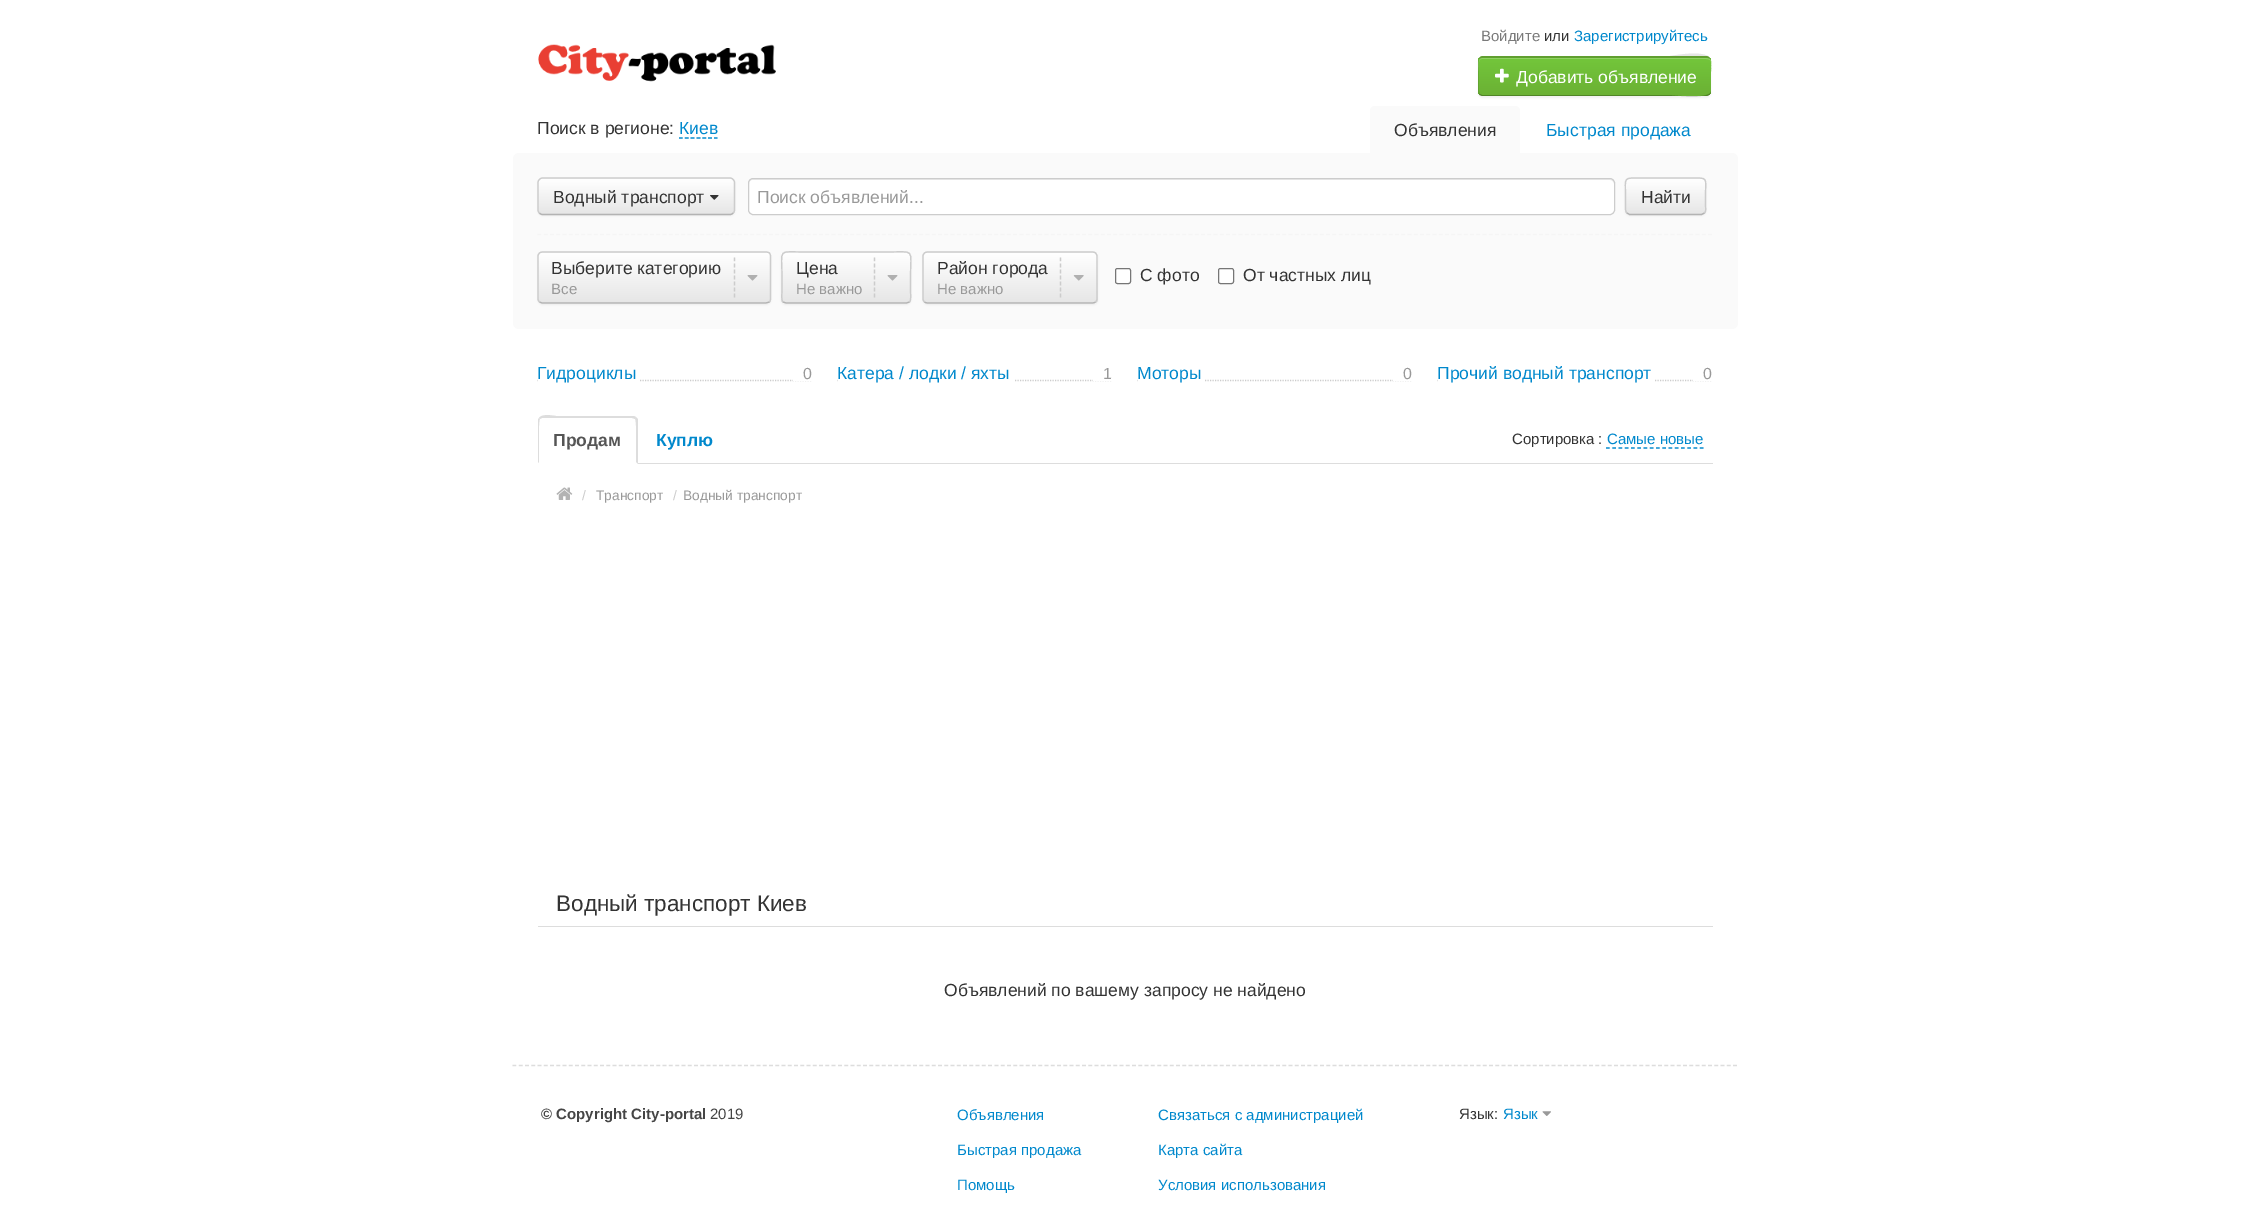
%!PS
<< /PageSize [2248 1227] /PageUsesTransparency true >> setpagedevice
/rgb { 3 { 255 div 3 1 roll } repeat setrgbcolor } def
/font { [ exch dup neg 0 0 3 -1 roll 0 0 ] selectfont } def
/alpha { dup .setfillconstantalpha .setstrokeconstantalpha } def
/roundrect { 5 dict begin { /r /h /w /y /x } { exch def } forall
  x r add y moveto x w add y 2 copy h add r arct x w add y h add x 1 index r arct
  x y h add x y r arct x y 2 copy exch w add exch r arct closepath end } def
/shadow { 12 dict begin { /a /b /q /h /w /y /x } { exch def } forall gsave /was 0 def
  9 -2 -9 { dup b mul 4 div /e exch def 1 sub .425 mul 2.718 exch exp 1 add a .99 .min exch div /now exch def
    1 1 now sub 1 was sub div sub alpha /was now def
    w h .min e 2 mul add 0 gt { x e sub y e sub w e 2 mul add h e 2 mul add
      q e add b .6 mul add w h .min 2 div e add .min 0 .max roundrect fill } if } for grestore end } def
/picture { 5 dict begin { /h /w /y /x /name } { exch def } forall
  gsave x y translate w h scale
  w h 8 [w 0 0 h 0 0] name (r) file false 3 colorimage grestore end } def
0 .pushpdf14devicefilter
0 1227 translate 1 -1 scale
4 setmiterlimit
255 255 255 rgb
0 0 2248 1227 rectfill
(img/1.rgb) 538 44 238 38 picture
0 0 0 rgb
1478 58 233 40 5 1 0.05 shadow
107 177 52 rgb
1478 56 233 40 5 roundrect fill
gsave
1478 56 233 40 5 roundrect clip newpath
gsave 1478 58 moveto 1711 58 lineto 1711 95 lineto 1478 95 lineto closepath clip newpath
<< /ShadingType 2 /ColorSpace /DeviceRGB /Coords [1595 57 1595 95] /Extend [true true] /Function << /FunctionType 2 /Domain [0 1] /C0 [0.451 0.78 0.231] /C1 [0.42 0.694 0.204] /N 1 >> >> shfill grestore
grestore
143 209 98 rgb
1482 59 moveto 1706 59 lineto 1714 59 1711 66 1711 72 curveto 1711 92 lineto 1711 71 lineto 1711 67 1714 58 1706 58 curveto 1482 58 lineto 1477 58 1479 68 1479 71 curveto 1479 93 lineto 1479 67 lineto 1479 64 1478 59 1482 59 curveto closepath fill
0.1 alpha
0 0 0 rgb
1482 58 moveto 1480 59 lineto 1479 58 lineto 1481 56 lineto 1670 56 lineto 1671 56 1711 48 1711 61 curveto 1711 59 1709 58 1706 58 curveto closepath fill
0.25 alpha
1480 94 moveto 1479 95 lineto 1480 95 1481 96 1482 96 curveto 1706 96 lineto 1709 96 1711 94 1711 91 curveto 1711 100 1671 95 1669 95 curveto 1482 95 lineto closepath fill
0.1 alpha
1479 94.5 moveto 1478.5 93.5 1478 92.5 1478 91 curveto 1478 61 lineto 1478 59.5 1478.5 58.5 1479 57.5 curveto 1480 58.5 lineto 1479.5 59 1479 60 1479 61 curveto 1479 91 lineto 1479 92 1479.5 93 1480 94 curveto closepath fill
1 alpha
(img/2.rgb) 1495 68 14 15 picture
0 136 204 rgb
1.2 setlinewidth
[3.75 2.09] 0 setdash
679 138 moveto 717.5 138 lineto stroke
250 250 250 rgb
1375 106 moveto 1515 106 lineto 1518 106 1520 108 1520 111 curveto 1520 154 lineto 1370 154 lineto 1370 111 lineto 1370 108 1372 106 1375 106 curveto closepath fill
513 153 1225 176 6 roundrect fill
0 0 0 rgb
538 179 197 37 5 1 0.05 shadow
245 245 245 rgb
538 178 197 37 5 roundrect fill
gsave
538 178 197 37 5 roundrect clip newpath
gsave 538 179 moveto 735 179 lineto 735 214 lineto 538 214 lineto closepath clip newpath
<< /ShadingType 2 /ColorSpace /DeviceRGB /Coords [636 179 636 214] /Extend [true true] /Function << /FunctionType 2 /Domain [0 1] /C0 [1 1 1] /C1 [0.902 0.902 0.902] /N 1 >> >> shfill grestore
grestore
179 179 179 rgb
[] 0 setdash
733 213 moveto 732.5 214 731 214.5 730 214.5 curveto 542.5 214.5 lineto 541.5 214.5 540 214 539.5 213 curveto stroke
204 204 204 rgb
539.5 213 moveto 538.5 212.5 538 211 538 210 curveto 538 182.5 lineto 538 181.5 538.5 180 539.5 179.5 curveto 540 178.5 541.5 178 542.5 178 curveto 730 178 lineto 731 178 732.5 178.5 733 179.5 curveto 734 180 734.5 181.5 734.5 182.5 curveto 734.5 210 lineto 734.5 211 734 212.5 733 213 curveto stroke
(img/3.rgb) 710 195 9 5 picture
255 255 255 rgb
748 178 867 37 5 roundrect fill
236 236 236 rgb
752 180 moveto 1610 180 lineto 1612 180 1614 182 1614 184 curveto 1614 181 1613 179 1610 179 curveto 753 179 lineto 750 179 749 181 749 184 curveto 749 182 750 180 752 180 curveto closepath fill
204 204 204 rgb
1 setlinewidth
748.5 178.5 866 36 4.5 roundrect stroke
0 0 0 rgb
1625 179 81 37 5 1 0.05 shadow
245 245 245 rgb
1625 178 81 37 5 roundrect fill
gsave
1625 178 81 37 5 roundrect clip newpath
gsave 1625 179 moveto 1706 179 lineto 1706 214 lineto 1625 214 lineto closepath clip newpath
<< /ShadingType 2 /ColorSpace /DeviceRGB /Coords [1666 179 1666 214] /Extend [true true] /Function << /FunctionType 2 /Domain [0 1] /C0 [1 1 1] /C1 [0.902 0.902 0.902] /N 1 >> >> shfill grestore
grestore
179 179 179 rgb
1.2 setlinewidth
1704.5 213 moveto 1701.5 214.5 lineto 1629.5 214.5 lineto 1627 213 lineto stroke
204 204 204 rgb
1627 213 moveto 1625 211 1625.5 208 1625.5 205.5 curveto 1625.5 196 lineto 1625.5 176.5 1622.5 178 1642 178 curveto 1689.5 178 lineto 1709 178 1705.5 176.5 1705.5 196 curveto 1705.5 205.5 lineto 1705.5 208 1706.5 211 1704.5 213 curveto stroke
245 245 245 rgb
[3.75 2.51] 0 setdash
537.5 234.5 moveto 1712.5 234.5 lineto stroke
0 0 0 rgb
538 253 233 52 5 1 0.05 shadow
245 245 245 rgb
538 251 233 53 5 roundrect fill
gsave
538 251 233 53 5 roundrect clip newpath
gsave 538 253 moveto 771 253 lineto 771 303 lineto 538 303 lineto closepath clip newpath
<< /ShadingType 2 /ColorSpace /DeviceRGB /Coords [654 253 654 303] /Extend [true true] /Function << /FunctionType 2 /Domain [0 1] /C0 [1 1 1] /C1 [0.902 0.902 0.902] /N 1 >> >> shfill grestore
grestore
179 179 179 rgb
[] 0 setdash
769.5 302 moveto 766 303 lineto 542 303 lineto 539.5 302 lineto stroke
204 204 204 rgb
539.5 302 moveto 538.5 301 538 300 538 299 curveto 538 256 lineto 538 255 538.5 254 539.5 253 curveto 540 252.5 541.5 252 542.5 252 curveto 766 252 lineto 767.5 252 768.5 252.5 769.5 253 curveto 770 254 770.5 255 770.5 256 curveto 770.5 299 lineto 770.5 300 770 301 769.5 302 curveto stroke
[3.75 2.29] 0 setdash
734.5 257.5 moveto 734.5 297.5 lineto stroke
(img/4.rgb) 747 275 11 6 picture
0 0 0 rgb
781 253 130 52 5 1 0.05 shadow
245 245 245 rgb
781 251 130 53 5 roundrect fill
gsave
781 251 130 53 5 roundrect clip newpath
gsave 781 253 moveto 911 253 lineto 911 303 lineto 781 303 lineto closepath clip newpath
<< /ShadingType 2 /ColorSpace /DeviceRGB /Coords [846 253 846 303] /Extend [true true] /Function << /FunctionType 2 /Domain [0 1] /C0 [1 1 1] /C1 [0.902 0.902 0.902] /N 1 >> >> shfill grestore
grestore
179 179 179 rgb
[] 0 setdash
909.5 302 moveto 906.5 303 lineto 806 303 lineto 786 303 lineto 783 302 lineto stroke
204 204 204 rgb
783 302 moveto 781 299.5 782 294 782 291.5 curveto 782 277.5 lineto 782 247.5 776.5 252 806 252 curveto 886 252 lineto 916 252 910.5 247.5 910.5 277.5 curveto 910.5 291.5 lineto 910.5 294 911.5 299.5 909.5 302 curveto stroke
[3.75 2.29] 0 setdash
874.5 257.5 moveto 874.5 297.5 lineto stroke
(img/4.rgb) 887 275 11 6 picture
0 0 0 rgb
923 253 175 52 5 1 0.05 shadow
245 245 245 rgb
923 251 175 53 5 roundrect fill
gsave
923 251 175 53 5 roundrect clip newpath
gsave 923 253 moveto 1098 253 lineto 1098 303 lineto 923 303 lineto closepath clip newpath
<< /ShadingType 2 /ColorSpace /DeviceRGB /Coords [1010 253 1010 303] /Extend [true true] /Function << /FunctionType 2 /Domain [0 1] /C0 [1 1 1] /C1 [0.902 0.902 0.902] /N 1 >> >> shfill grestore
grestore
179 179 179 rgb
[] 0 setdash
1095.5 302 moveto 1095 302.5 1093.5 303 1092.5 303 curveto 927.5 303 lineto 926.5 303 925 302.5 924.5 302 curveto stroke
204 204 204 rgb
924.5 302 moveto 923.5 301 923 300 923 299 curveto 923 256 lineto 923 255 923.5 254 924.5 253 curveto 925 252.5 926.5 252 927.5 252 curveto 1092.5 252 lineto 1093.5 252 1095 252.5 1095.5 253 curveto 1096.5 254 1097 255 1097 256 curveto 1097 299 lineto 1097 300 1096.5 301 1095.5 302 curveto stroke
[3.75 2.29] 0 setdash
1060.5 257.5 moveto 1060.5 297.5 lineto stroke
(img/5.rgb) 1073 275 11 6 picture
255 255 255 rgb
1115.5 268.5 15 15 2 roundrect gsave fill grestore
118 118 118 rgb
1 setlinewidth
[] 0 setdash
stroke
255 255 255 rgb
1218.5 268.5 15 15 2 roundrect gsave fill grestore
118 118 118 rgb
stroke
204 204 204 rgb
1.2 setlinewidth
[1.25 1.25] 0 setdash
537.5 380.5 moveto 812.5 380.5 lineto stroke
255 255 255 rgb
538 379 101 3 rectfill
793 379 19 2 rectfill
204 204 204 rgb
837.5 380.5 moveto 1112.5 380.5 lineto stroke
255 255 255 rgb
838 379 176 3 rectfill
1093 379 19 2 rectfill
204 204 204 rgb
1137.5 380.5 moveto 1412.5 380.5 lineto stroke
255 255 255 rgb
1138 379 66 3 rectfill
1393 379 19 2 rectfill
204 204 204 rgb
1437.5 380.5 moveto 1712.5 380.5 lineto stroke
[
  [1438 379 216 3 255 255 255]
  [1693 379 19 2 255 255 255]
  [638 463 1075 1 221 221 221]
] { aload pop rgb rectfill } forall
542 418 moveto 540 419 lineto 539 418 lineto 542 413 555 416 556 416 curveto 634 416 lineto 636 417 lineto 635 419 lineto 632 418 lineto closepath fill
636 417 moveto 638 419 lineto 638 464 lineto 636 462 lineto 636 457 637 420 635 419 curveto closepath fill
538 463 moveto 538 421 lineto 538 420 538 419 539 418 curveto 540 419 lineto 538 420 539 457 539 462 curveto closepath fill
0 136 204 rgb
[3.75 2.5] 0 setdash
1606 448 moveto 1704 448 lineto stroke
(img/6.rgb) 556 487 17 13 picture
221 221 221 rgb
538 926 1175 1 rectfill
[3.75 2.51] 0 setdash
512.5 1065.5 moveto 1737.5 1065.5 lineto stroke
(img/7.rgb) 1542 1111 9 5 picture
/LiberationSans-Regular 15 font
122 122 122 rgb
1481 41 moveto (Войдите) show
51 51 51 rgb
1544 41 moveto (или) show
0 136 204 rgb
1574 41 moveto (Зарегистрируйтесь) show
/LiberationSans-Regular 17.5 font
255 255 255 rgb
1516 83 moveto (Добавить объявление) show
51 51 51 rgb
537 134 moveto (Поиск в регионе:) show
0 136 204 rgb
679 134 moveto (Киев) show
51 51 51 rgb
1394 136 moveto (Объявления) show
0 136 204 rgb
1546 136 moveto (Быстрая продажа) show
51 51 51 rgb
553 203 moveto (Водный транспорт) show
153 153 153 rgb
757 203 moveto (Поиск объявлений...) show
51 51 51 rgb
1641 203 moveto (Найти) show
551 274 moveto (Выберите категорию) show
/LiberationSans-Regular 15 font
153 153 153 rgb
551 294 moveto (Все) show
/LiberationSans-Regular 17.5 font
51 51 51 rgb
796 274 moveto (Цена) show
/LiberationSans-Regular 15 font
153 153 153 rgb
796 294 moveto (Не важно) show
/LiberationSans-Regular 17.5 font
51 51 51 rgb
937 274 moveto (Район города) show
/LiberationSans-Regular 15 font
153 153 153 rgb
937 294 moveto (Не важно) show
/LiberationSans-Regular 17.5 font
51 51 51 rgb
1140 281 moveto (С фото) show
1243 281 moveto (От частных лиц) show
0 136 204 rgb
537 379 moveto (Гидроциклы) show
/LiberationSans-Regular 16 font
153 153 153 rgb
803 379 moveto (0) show
/LiberationSans-Regular 17.5 font
0 136 204 rgb
837 379 moveto (Катера / лодки / яхты) show
/LiberationSans-Regular 16 font
153 153 153 rgb
1103 379 moveto (1) show
/LiberationSans-Regular 17.5 font
0 136 204 rgb
1137 379 moveto (Моторы) show
/LiberationSans-Regular 16 font
153 153 153 rgb
1403 379 moveto (0) show
/LiberationSans-Regular 17.5 font
0 136 204 rgb
1437 379 moveto (Прочий водный транспорт) show
/LiberationSans-Regular 16 font
153 153 153 rgb
1703 379 moveto (0) show
/LiberationSans-Bold 17.5 font
85 85 85 rgb
553 446 moveto (Продам) show
0 136 204 rgb
656 446 moveto (Куплю) show
/LiberationSans-Regular 15 font
51 51 51 rgb
1512 444 moveto (Сортировка :) show
0 136 204 rgb
1607 444 moveto (Самые новые) show
/LiberationSans-Regular 13.75 font
204 204 204 rgb
582 500 moveto (/) show
153 153 153 rgb
596 500 moveto (Транспорт) show
204 204 204 rgb
673 500 moveto (/) show
153 153 153 rgb
683 500 moveto (Водный транспорт) show
/LiberationSans-Regular 22.5 font
51 51 51 rgb
556 911 moveto (Водный транспорт Киев) show
/LiberationSans-Regular 17.5 font
944 996 moveto (Объявлений по вашему запросу не найдено) show
/LiberationSans-Bold 15 font
69 69 69 rgb
541 1119 moveto (© Copyright City-portal) show
/LiberationSans-Regular 15 font
710 1119 moveto (2019) show
0 136 204 rgb
[
  [(Объявления) 957 1120]
  [(Быстрая продажа) 957 1155]
  [(Помощь) 957 1190]
  [(Связаться с администрацией) 1158 1120]
  [(Карта сайта) 1158 1155]
  [(Условия использования) 1158 1190]
] { aload pop moveto show } forall
51 51 51 rgb
1459 1119 moveto (Язык:) show
0 136 204 rgb
1503 1119 moveto (Язык) show
.poppdf14devicefilter showpage
